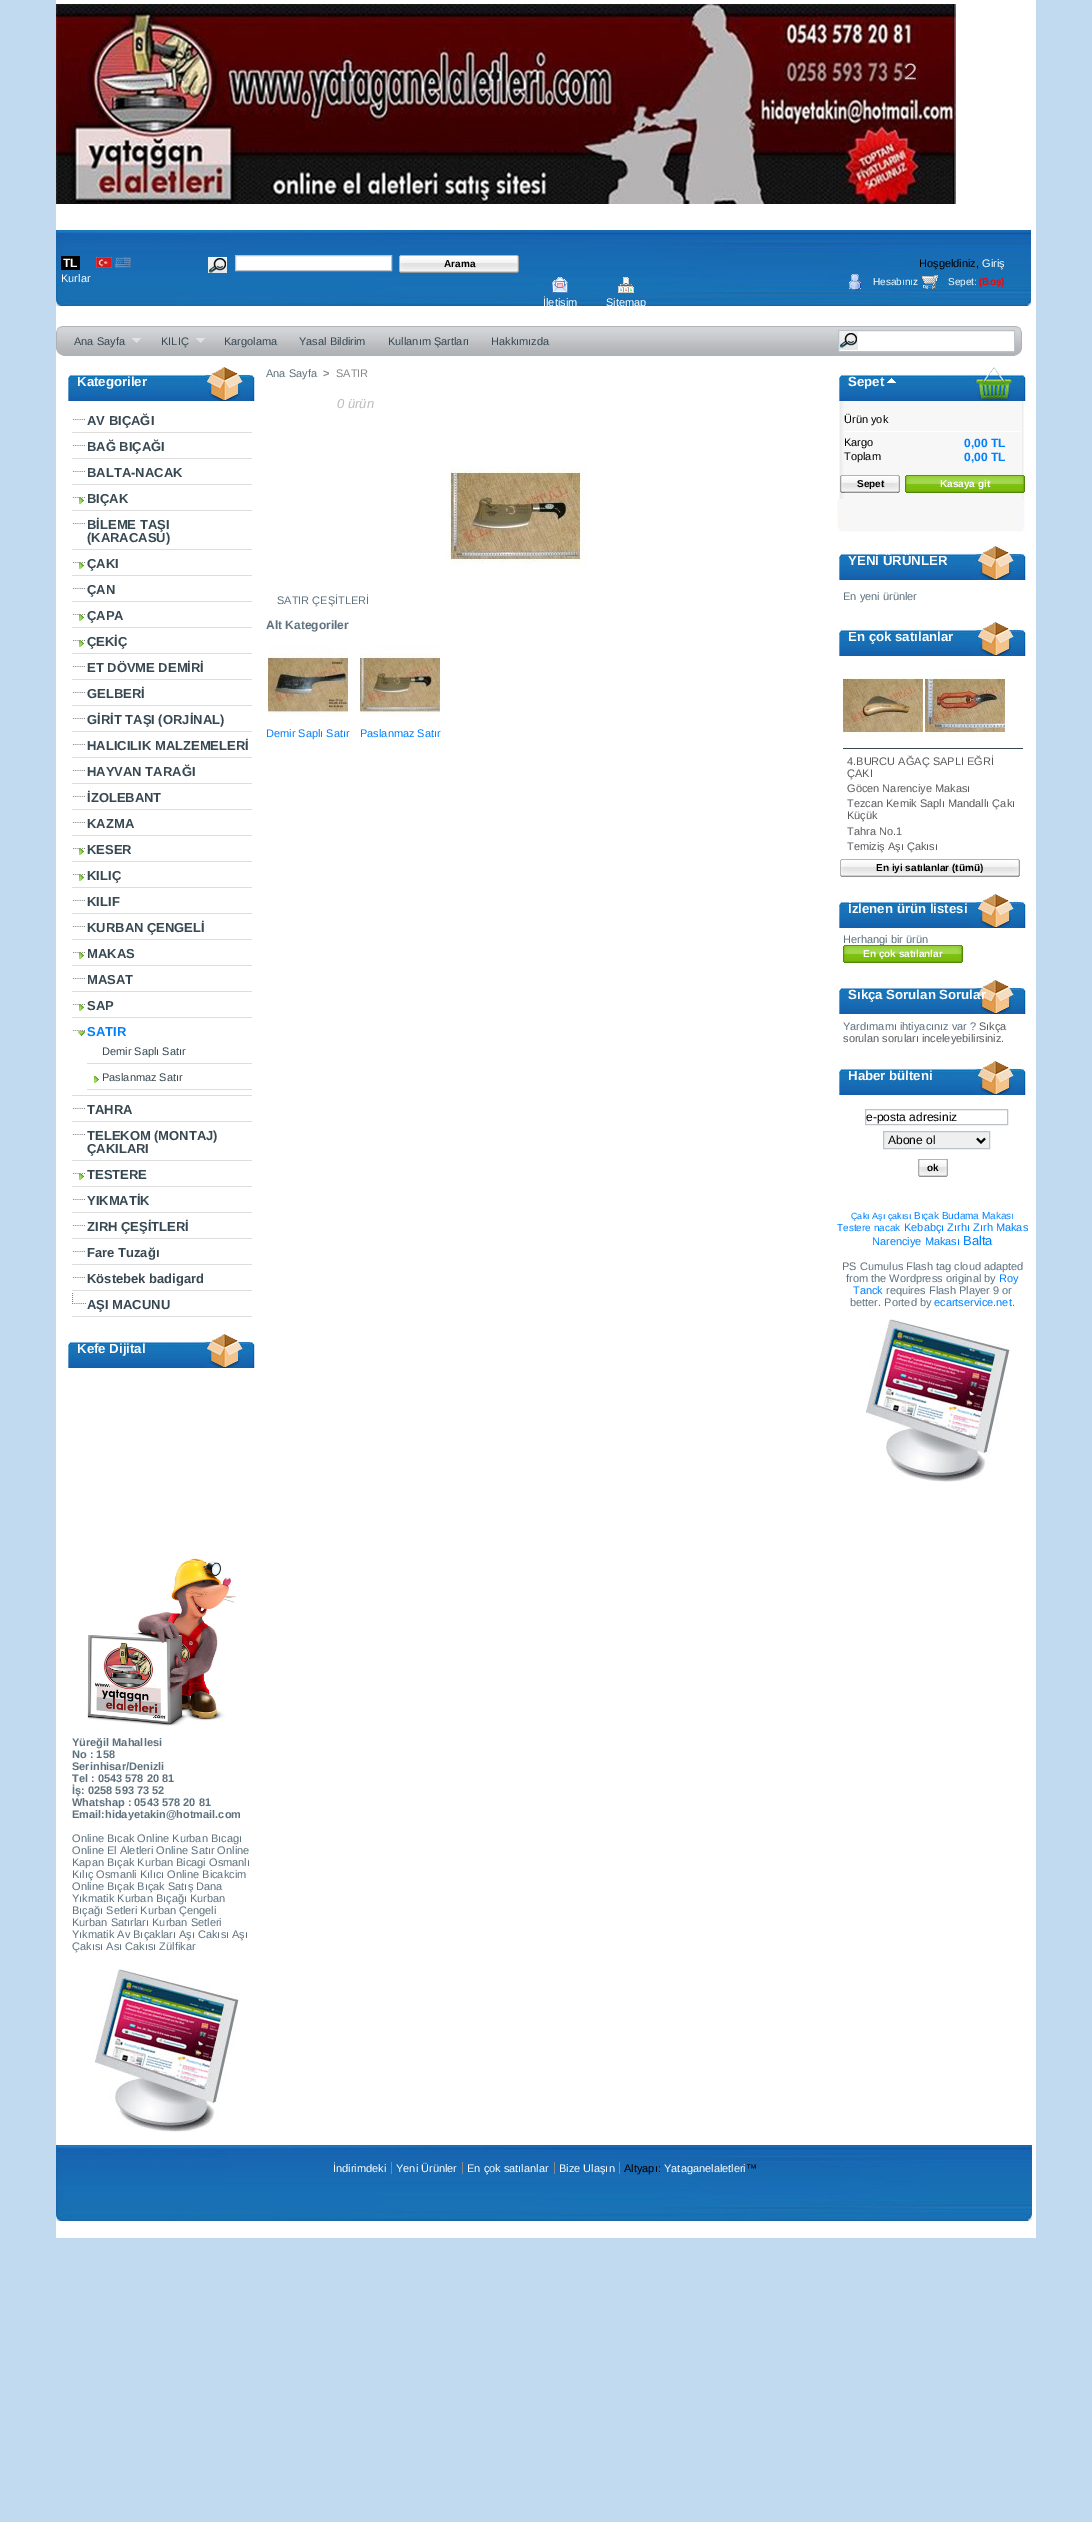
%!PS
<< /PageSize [1092 2522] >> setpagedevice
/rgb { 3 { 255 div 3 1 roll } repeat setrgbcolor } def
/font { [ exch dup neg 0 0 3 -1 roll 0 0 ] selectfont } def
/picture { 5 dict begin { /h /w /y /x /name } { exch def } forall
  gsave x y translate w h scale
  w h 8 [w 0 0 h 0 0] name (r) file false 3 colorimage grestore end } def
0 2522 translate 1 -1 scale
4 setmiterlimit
193 218 240 rgb
0 0 1092 2522 rectfill
255 255 255 rgb
56 0 980 2238 rectfill
(img/1.rgb) 56 4 900 200 picture
(img/2.rgb) 56 230 975 76 picture
0 0 0 rgb
61 256 19 14 rectfill
(img/3.rgb) 96 257 16 11 picture
(img/4.rgb) 115 257 16 11 picture
(img/5.rgb) 208 257 19 16 picture
255 255 255 rgb
235.5 255.5 moveto 391.5 255.5 lineto 391.5 270.5 lineto 235.5 270.5 lineto closepath gsave fill grestore
189 194 201 rgb
stroke
(img/6.rgb) 399 255 120 18 picture
(img/7.rgb) 849 274 12 16 picture
(img/8.rgb) 922 275 16 14 picture
(img/9.rgb) 552 277 16 16 picture
(img/10.rgb) 618 277 16 16 picture
(img/11.rgb) 56 326 7 30 picture
(img/12.rgb) 63 326 952 30 picture
(img/13.rgb) 132 338 9 5 picture
(img/13.rgb) 196 338 9 5 picture
255 255 255 rgb
839 331 175 20 rectfill
(img/14.rgb) 839 332 19 18 picture
189 194 201 rgb
838.5 330.5 176 21 rectstroke
(img/15.rgb) 1015 326 7 30 picture
(img/16.rgb) 68 367 187 34 picture
(img/17.rgb) 73 419 12 1 picture
221 221 221 rgb
72 432 180 1 rectfill
(img/17.rgb) 73 445 12 1 picture
72 458 180 1 rectfill
(img/17.rgb) 73 471 12 1 picture
72 484 180 1 rectfill
(img/17.rgb) 73 497 12 1 picture
72 510 180 1 rectfill
(img/18.rgb) 79 497 5 7 picture
(img/17.rgb) 73 523 12 1 picture
72 549 180 1 rectfill
(img/17.rgb) 73 562 12 1 picture
72 575 180 1 rectfill
(img/18.rgb) 79 562 5 7 picture
(img/17.rgb) 73 588 12 1 picture
72 601 180 1 rectfill
(img/17.rgb) 73 614 12 1 picture
72 627 180 1 rectfill
(img/18.rgb) 79 614 5 7 picture
(img/17.rgb) 73 640 12 1 picture
72 653 180 1 rectfill
(img/18.rgb) 79 640 5 7 picture
(img/17.rgb) 73 666 12 1 picture
72 679 180 1 rectfill
(img/17.rgb) 73 692 12 1 picture
72 705 180 1 rectfill
(img/17.rgb) 73 718 12 1 picture
72 731 180 1 rectfill
(img/17.rgb) 73 744 12 1 picture
72 757 180 1 rectfill
(img/17.rgb) 73 770 12 1 picture
72 783 180 1 rectfill
(img/17.rgb) 73 796 12 1 picture
72 809 180 1 rectfill
(img/17.rgb) 73 822 12 1 picture
72 835 180 1 rectfill
(img/17.rgb) 73 848 12 1 picture
72 861 180 1 rectfill
(img/18.rgb) 79 848 5 7 picture
(img/17.rgb) 73 874 12 1 picture
72 887 180 1 rectfill
(img/18.rgb) 79 874 5 7 picture
(img/17.rgb) 73 900 12 1 picture
72 913 180 1 rectfill
(img/17.rgb) 73 926 12 1 picture
72 939 180 1 rectfill
(img/17.rgb) 73 952 12 1 picture
72 965 180 1 rectfill
(img/18.rgb) 79 952 5 7 picture
(img/17.rgb) 73 978 12 1 picture
72 991 180 1 rectfill
(img/17.rgb) 73 1004 12 1 picture
72 1017 180 1 rectfill
(img/18.rgb) 79 1004 5 7 picture
(img/17.rgb) 73 1030 12 1 picture
72 1095 180 1 rectfill
(img/19.rgb) 78 1031 7 5 picture
87 1063 165 1 rectfill
87 1089 165 1 rectfill
(img/20.rgb) 94 1076 5 7 picture
(img/17.rgb) 73 1108 12 1 picture
72 1121 180 1 rectfill
(img/17.rgb) 73 1134 12 1 picture
72 1160 180 1 rectfill
(img/17.rgb) 73 1173 12 1 picture
72 1186 180 1 rectfill
(img/18.rgb) 79 1173 5 7 picture
(img/17.rgb) 73 1199 12 1 picture
72 1212 180 1 rectfill
(img/17.rgb) 73 1225 12 1 picture
72 1238 180 1 rectfill
(img/17.rgb) 73 1251 12 1 picture
72 1264 180 1 rectfill
(img/17.rgb) 73 1277 12 1 picture
72 1290 180 1 rectfill
(img/21.rgb) 72 1293 14 11 picture
72 1316 180 1 rectfill
(img/16.rgb) 68 1334 187 34 picture
(img/22.rgb) 87 1558 150 168 picture
(img/23.rgb) 94 1969 145 163 picture
(img/24.rgb) 442 466 144 101 picture
(img/25.rgb) 268 645 80 72 picture
(img/26.rgb) 360 645 80 70 picture
(img/27.rgb) 837 499 190 33 picture
(img/28.rgb) 839 367 187 34 picture
(img/29.rgb) 887 378 9 5 picture
(img/30.rgb) 839 401 185 98 picture
255 255 255 rgb
844 431 177 1 rectfill
(img/31.rgb) 840 475 60 18 picture
(img/32.rgb) 905 475 120 18 picture
(img/16.rgb) 839 546 187 34 picture
(img/16.rgb) 839 622 187 34 picture
(img/33.rgb) 843 674 80 63 picture
(img/34.rgb) 925 666 80 72 picture
55 72 83 rgb
843 748 180 1 rectfill
(img/35.rgb) 840 859 180 18 picture
(img/16.rgb) 839 894 187 34 picture
(img/36.rgb) 843 945 120 18 picture
(img/16.rgb) 839 980 187 34 picture
(img/16.rgb) 839 1061 187 34 picture
189 194 201 rgb
865.5 1109.5 142 15 rectstroke
239 239 239 rgb
883.5 1131.5 moveto 989.5 1131.5 lineto 989.5 1148.5 lineto 883.5 1148.5 lineto closepath gsave fill grestore
189 194 201 rgb
stroke
0 0 0 rgb
2 setlinewidth
977 1138.5 moveto 981 1142.5 lineto 985 1138.5 lineto stroke
(img/37.rgb) 918 1159 30 18 picture
(img/23.rgb) 865 1319 145 163 picture
(img/38.rgb) 56 2145 976 76 picture
[
  [391 2162 1 12 136 136 136]
  [462 2162 1 12 136 136 136]
  [554 2162 1 12 136 136 136]
  [619 2162 1 12 136 136 136]
] { aload pop rgb rectfill } forall
/LiberationSans-Bold 12 font
255 255 255 rgb
63 267 moveto (TL) show
/LiberationSans-Regular 11 font
61 282 moveto (Kurlar) show
/LiberationSans-Bold 10 font
0 0 0 rgb
444 267 moveto (Arama) show
/LiberationSans-Regular 11 font
919 267 moveto (Hoşgeldiniz,) show
255 255 255 rgb
982 267 moveto (Giriş) show
/LiberationSans-Regular 10 font
873 285 moveto (Hesabınız) show
948 285 moveto (Sepet:) show
/LiberationSans-Bold 10 font
255 0 0 rgb
979 285 moveto (\(Boş\)) show
/LiberationSans-Regular 11 font
255 255 255 rgb
543 306 moveto (İletişim) show
606 306 moveto (Sitemap) show
55 72 83 rgb
[
  [(Ana Sayfa) 74 345]
  [(KILIÇ) 161 345]
  [(Kargolama) 224 345]
  [(Yasal Bildirim) 299 345]
  [(Kullanım Şartları) 388 345]
  [(Hakkımızda) 491 345]
] { aload pop moveto show } forall
/LiberationSans-Bold 13.25 font
255 255 255 rgb
77 386 moveto (Kategoriler) show
/LiberationSans-Bold 13 font
55 72 83 rgb
[
  [(AV BIÇAĞI) 87 425]
  [(BAĞ BIÇAĞI) 87 451]
  [(BALTA-NACAK) 87 477]
  [(BIÇAK) 87 503]
  [(BİLEME TAŞI) 87 529]
  [(\(KARACASU\)) 87 542]
  [(ÇAKI) 87 568]
  [(ÇAN) 87 594]
  [(ÇAPA) 87 620]
  [(ÇEKİÇ) 87 646]
  [(ET DÖVME DEMİRİ) 87 672]
  [(GELBERİ) 87 698]
  [(GİRİT TAŞI \(ORJİNAL\)) 87 724]
  [(HALICILIK MALZEMELERİ) 87 750]
  [(HAYVAN TARAĞI) 87 776]
  [(İZOLEBANT) 87 802]
  [(KAZMA) 87 828]
  [(KESER) 87 854]
  [(KILIÇ) 87 880]
  [(KILIF) 87 906]
  [(KURBAN ÇENGELİ) 87 932]
  [(MAKAS) 87 958]
  [(MASAT) 87 984]
  [(SAP) 87 1010]
] { aload pop moveto show } forall
0 128 255 rgb
87 1036 moveto (SATIR) show
/LiberationSans-Regular 11 font
55 72 83 rgb
102 1055 moveto (Demir Saplı Satır) show
102 1081 moveto (Paslanmaz Satır) show
/LiberationSans-Bold 13 font
[
  [(TAHRA) 87 1114]
  [(TELEKOM \(MONTAJ\)) 87 1140]
  [(ÇAKILARI) 87 1153]
  [(TESTERE) 87 1179]
  [(YIKMATİK) 87 1205]
  [(ZIRH ÇEŞİTLERİ) 87 1231]
  [(Fare Tuzağı) 87 1257]
  [(Köstebek badigard) 87 1283]
  [(AŞI MACUNU) 87 1309]
] { aload pop moveto show } forall
/LiberationSans-Bold 13.25 font
255 255 255 rgb
77 1353 moveto (Kefe Dijital) show
/LiberationSans-Bold 11 font
93 113 126 rgb
[
  [(Yüreğil Mahallesi) 72 1746]
  [(No : 158) 72 1758]
  [(Serinhisar/Denizli) 72 1770]
  [(Tel : 0543 578 20 81) 72 1782]
  [(İş: 0258 593 73 52) 72 1794]
  [(Whatshap : 0543 578 20 81) 72 1806]
  [(Email:hidayetakin@hotmail.com) 72 1818]
] { aload pop moveto show } forall
/LiberationSans-Regular 11 font
[
  [(Online Bıcak Online Kurban Bıcagı) 72 1842]
  [(Online El Aletleri Online Satır Online) 72 1854]
  [(Kapan Bıçak Kurban Bicagi Osmanlı) 72 1866]
  [(Kılıç Osmanli Kılıcı Online Bicakcim) 72 1878]
  [(Online Bıçak Bıçak Satış Dana) 72 1890]
  [(Yıkmatik Kurban Bıçağı Kurban) 72 1902]
  [(Bıçağı Setleri Kurban Çengeli) 72 1914]
  [(Kurban Satırları Kurban Setleri) 72 1926]
  [(Yıkmatik Av Bıçakları Aşı Cakısı Aşı) 72 1938]
  [(Çakısı Ası Cakısı Zülfikar) 72 1950]
  [(Ana Sayfa) 266 377]
] { aload pop moveto show } forall
/LiberationSans-Bold 11 font
136 136 136 rgb
323 377 moveto (>) show
/LiberationSans-Regular 11 font
336 377 moveto (SATIR) show
/LiberationSans-Italic 13 font
187 187 187 rgb
337 408 moveto (0 ürün) show
/LiberationSans-Regular 11 font
93 113 126 rgb
277 604 moveto (SATIR ÇEŞİTLERİ) show
/LiberationSans-Bold 12 font
266 629 moveto (Alt Kategoriler) show
/LiberationSans-Regular 11 font
0 128 255 rgb
266 737 moveto (Demir Saplı Satır) show
360 737 moveto (Paslanmaz Satır) show
/LiberationSans-Bold 13.25 font
255 255 255 rgb
848 386 moveto (Sepet) show
/LiberationSans-Regular 11 font
0 0 0 rgb
844 423 moveto (Ürün yok) show
844 446 moveto (Kargo) show
/LiberationSans-Bold 12 font
0 128 255 rgb
964 447 moveto (0,00 TL) show
/LiberationSans-Regular 11 font
0 0 0 rgb
844 460 moveto (Toplam) show
/LiberationSans-Bold 12 font
0 128 255 rgb
964 461 moveto (0,00 TL) show
/LiberationSans-Bold 10 font
0 0 0 rgb
857 487 moveto (Sepet) show
255 255 255 rgb
940 487 moveto (Kasaya git) show
/LiberationSans-Bold 13.25 font
848 565 moveto (YENİ ÜRÜNLER) show
/LiberationSans-Regular 11 font
93 113 126 rgb
843 600 moveto (En yeni ürünler) show
/LiberationSans-Bold 13.25 font
255 255 255 rgb
848 641 moveto (En çok satılanlar) show
/LiberationSans-Regular 11 font
89 90 94 rgb
[
  [(4.BURCU AĞAÇ SAPLI EĞRİ) 847 765]
  [(ÇAKI) 847 777]
  [(Göcen Narenciye Makası) 847 792]
  [(Tezcan Kemik Saplı Mandallı Çakı) 847 807]
  [(Küçük) 847 819]
  [(Tahra No.1) 847 835]
  [(Temiziş Aşı Çakısı) 847 850]
] { aload pop moveto show } forall
/LiberationSans-Bold 10 font
0 0 0 rgb
876 871 moveto (En iyi satılanlar \(tümü\)) show
/LiberationSans-Bold 13.25 font
255 255 255 rgb
848 913 moveto (İzlenen ürün listesi) show
/LiberationSans-Regular 11 font
93 113 126 rgb
843 943 moveto (Herhangi bir ürün) show
/LiberationSans-Bold 10 font
255 255 255 rgb
863 957 moveto (En çok satılanlar) show
/LiberationSans-Bold 13.25 font
848 999 moveto (Sıkça Sorulan Sorular) show
/LiberationSans-Regular 11 font
93 113 126 rgb
843 1030 moveto (Yardımamı ihtiyacınız var ?) show
89 90 94 rgb
979 1030 moveto (Sıkça) show
843 1042 moveto (sorulan soruları inceleyebilirsiniz.) show
/LiberationSans-Bold 13.25 font
255 255 255 rgb
848 1080 moveto (Haber bülteni) show
/LiberationSans-Regular 12 font
0 0 0 rgb
866 1121 moveto (e-posta adresiniz) show
888 1144 moveto (Abone ol) show
/LiberationSans-Bold 10 font
927 1171 moveto (ok) show
/LiberationSans-Regular 9 font
0 128 255 rgb
851 1219 moveto (Çakı) show
872 1219 moveto (Aşı çakısı) show
/LiberationSans-Regular 10 font
914 1219 moveto (Bıçak Budama Makası) show
837 1231 moveto (Testere nacak) show
/LiberationSans-Regular 11 font
904 1231 moveto (Kebabçı Zırhı Zırh Makas) show
872 1245 moveto (Narenciye Makası) show
/LiberationSans-Regular 13 font
963 1245 moveto (Balta) show
/LiberationSans-Regular 11 font
93 113 126 rgb
842 1270 moveto (PS Cumulus Flash tag cloud adapted) show
846 1282 moveto (from the Wordpress original by) show
0 128 255 rgb
999 1282 moveto (Roy) show
853 1294 moveto (Tanck) show
93 113 126 rgb
886 1294 moveto (requires Flash Player 9 or) show
850 1306 moveto (better. Ported by) show
0 128 255 rgb
934 1306 moveto (ecartservice.net) show
93 113 126 rgb
1012 1306 moveto (.) show
255 255 255 rgb
[
  [(İndirimdeki) 333 2172]
  [(Yeni Ürünler) 396 2172]
  [(En çok satılanlar) 467 2172]
  [(Bize Ulaşın) 559 2172]
] { aload pop moveto show } forall
0 0 0 rgb
624 2172 moveto (Altyapı:) show
255 255 255 rgb
664 2172 moveto (Yataganelaletleri) show
0 0 0 rgb
746 2172 moveto (™) show
showpage
